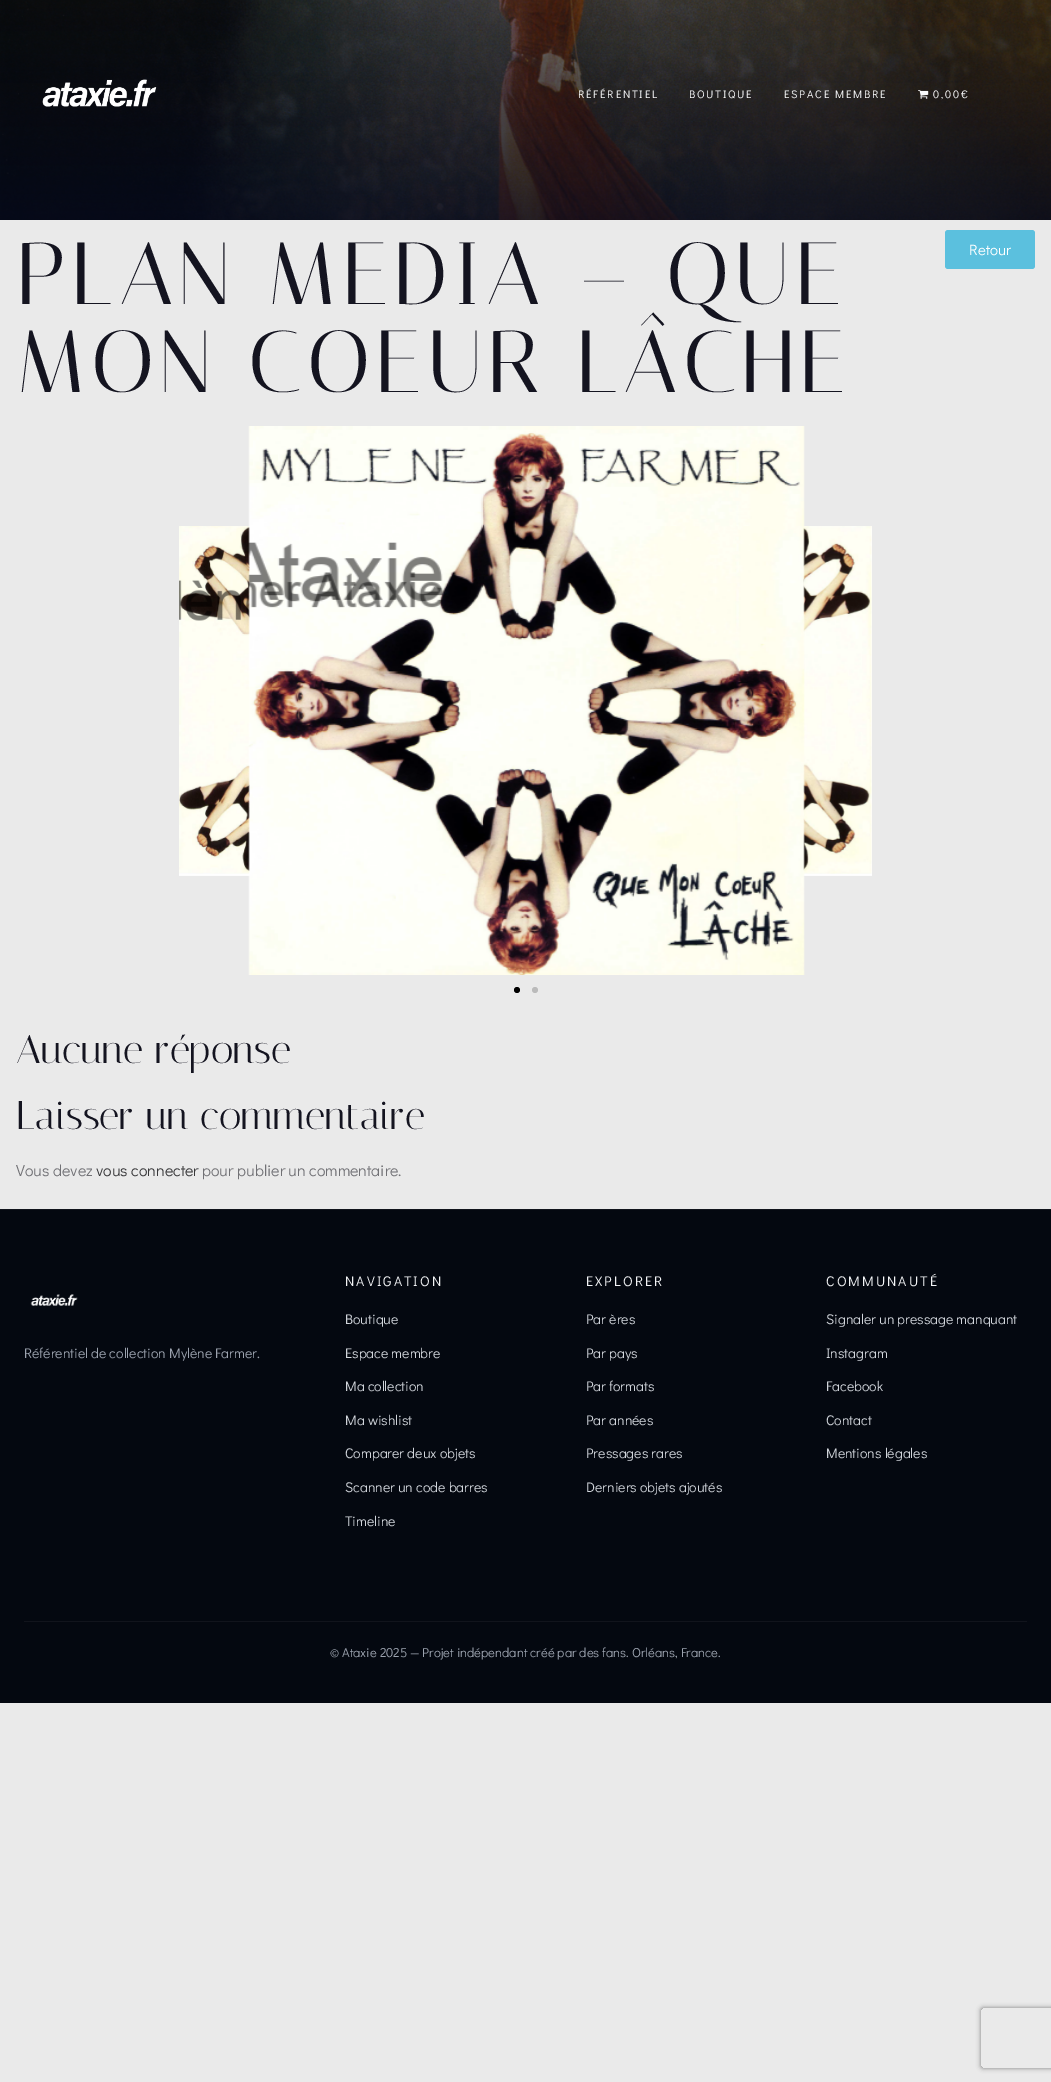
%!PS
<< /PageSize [1051 2082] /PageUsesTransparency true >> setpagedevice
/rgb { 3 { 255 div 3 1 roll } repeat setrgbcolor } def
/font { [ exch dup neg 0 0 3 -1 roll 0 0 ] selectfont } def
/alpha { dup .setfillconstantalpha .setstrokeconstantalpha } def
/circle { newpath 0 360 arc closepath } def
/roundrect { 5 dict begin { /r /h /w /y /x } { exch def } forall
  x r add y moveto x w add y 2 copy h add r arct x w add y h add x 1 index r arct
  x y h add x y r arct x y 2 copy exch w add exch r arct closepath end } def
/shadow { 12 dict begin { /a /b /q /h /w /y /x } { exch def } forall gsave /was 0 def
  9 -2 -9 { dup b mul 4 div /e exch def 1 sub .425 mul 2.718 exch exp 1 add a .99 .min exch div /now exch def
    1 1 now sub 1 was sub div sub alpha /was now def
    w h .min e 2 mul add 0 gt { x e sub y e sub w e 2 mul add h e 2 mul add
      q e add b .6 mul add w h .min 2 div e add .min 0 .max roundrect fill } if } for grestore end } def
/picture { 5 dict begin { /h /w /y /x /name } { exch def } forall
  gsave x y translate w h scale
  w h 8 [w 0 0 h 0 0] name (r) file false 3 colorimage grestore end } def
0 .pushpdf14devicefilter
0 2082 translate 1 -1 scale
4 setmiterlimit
234 234 234 rgb
0 0 1051 2082 rectfill
(img/1.rgb) 0 0 1051 220 picture
(img/2.rgb) 42 79 115 28 picture
(img/3.rgb) 918 90 11 9 picture
91 192 222 rgb
945 230 90 39 3 roundrect fill
(img/5.rgb) 179 526 693 350 picture
(img/4.rgb) 248 426 557 549 picture
0 0 0 rgb
517 990 3 circle fill
187 187 187 rgb
535 990 3 circle fill
4 8 16 rgb
0 1210 1051 493 rectfill
17 20 28 rgb
0 1209 1051 1 rectfill
(img/6.rgb) 30 1294 48 12 picture
24 1621 1003 1 rectfill
gsave
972 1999 moveto 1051 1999 lineto 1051 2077 lineto 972 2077 lineto closepath 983 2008 moveto 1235 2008 lineto 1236 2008 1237 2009 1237 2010 curveto 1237 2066 lineto 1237 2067 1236 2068 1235 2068 curveto 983 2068 lineto 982 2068 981 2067 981 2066 curveto 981 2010 lineto 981 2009 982 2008 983 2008 curveto closepath eoclip newpath
128 128 128 rgb
981 2008 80 60 2 2.5 1 shadow
grestore
/DidactGothic-Regular 11 font
249 250 251 rgb
578 98 moveto 1.75 0 (RÉFÉRENTIEL) ashow
689 98 moveto 1.75 0 (BOUTIQUE) ashow
784 98 moveto 1.75 0 (ESPACE MEMBRE) ashow
933 98 moveto 1.75 0 (0,00€) ashow
/Italiana-Regular 88 font
20 20 32 rgb
16 304 moveto 5 0 (PLAN MEDIA – QUE) ashow
16 392 moveto 5 0 (MON COEUR LÂCHE) ashow
/DidactGothic-Regular 15 font
255 255 255 rgb
969 255 moveto (Retour) show
/Italiana-Regular 40 font
20 20 32 rgb
16 1063 moveto (Aucune réponse) show
16 1129 moveto (Laisser un commentaire) show
/DidactGothic-Regular 16 font
113 113 117 rgb
16 1176 moveto (Vous devez) show
55 55 57 rgb
96 1176 moveto (vous connecter) show
113 113 117 rgb
202 1176 moveto (pour publier un commentaire.) show
/DidactGothic-Regular 14 font
156 163 175 rgb
24 1358 moveto (Référentiel de collection Mylène Farmer.) show
243 244 246 rgb
345 1286 moveto 2.1 0 (NAVIGATION) ashow
209 213 219 rgb
[
  [(Boutique) 345 1324]
  [(Espace membre) 345 1358]
  [(Ma collection) 345 1391]
  [(Ma wishlist) 345 1425]
  [(Comparer deux objets) 345 1458]
  [(Scanner un code barres) 345 1492]
  [(Timeline) 345 1526]
] { aload pop moveto show } forall
243 244 246 rgb
586 1286 moveto 2.1 0 (EXPLORER) ashow
209 213 219 rgb
[
  [(Par ères) 586 1324]
  [(Par pays) 586 1358]
  [(Par formats) 586 1391]
  [(Par années) 586 1425]
  [(Pressages rares) 586 1458]
  [(Derniers objets ajoutés) 586 1492]
] { aload pop moveto show } forall
243 244 246 rgb
826 1286 moveto 2.1 0 (COMMUNAUTÉ) ashow
209 213 219 rgb
[
  [(Signaler un pressage manquant) 826 1324]
  [(Instagram) 826 1358]
  [(Facebook) 826 1391]
  [(Contact) 826 1425]
  [(Mentions légales) 826 1458]
] { aload pop moveto show } forall
/DidactGothic-Regular 13 font
156 163 175 rgb
330 1657 moveto (© Ataxie 2025 — Projet indépendant créé par des fans. Orléans, France.) show
.poppdf14devicefilter showpage
